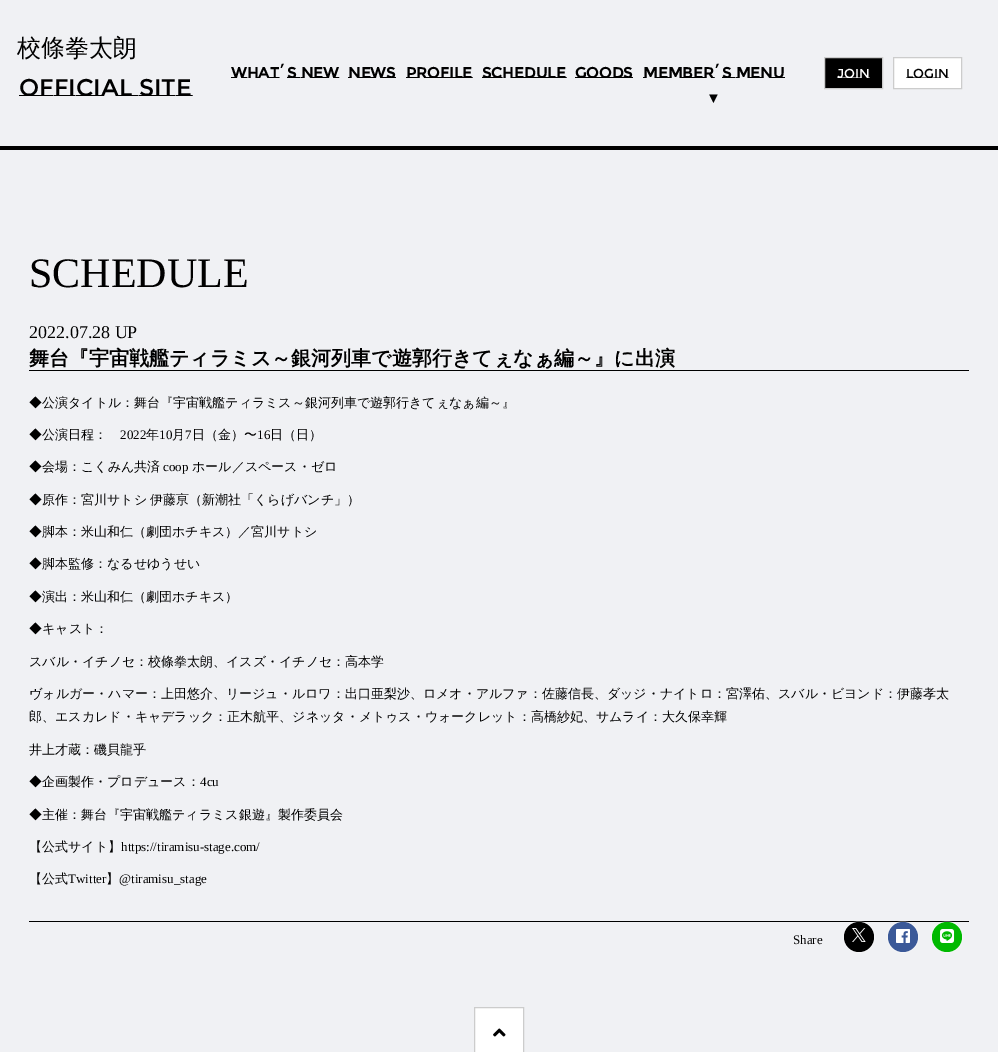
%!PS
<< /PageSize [998 1052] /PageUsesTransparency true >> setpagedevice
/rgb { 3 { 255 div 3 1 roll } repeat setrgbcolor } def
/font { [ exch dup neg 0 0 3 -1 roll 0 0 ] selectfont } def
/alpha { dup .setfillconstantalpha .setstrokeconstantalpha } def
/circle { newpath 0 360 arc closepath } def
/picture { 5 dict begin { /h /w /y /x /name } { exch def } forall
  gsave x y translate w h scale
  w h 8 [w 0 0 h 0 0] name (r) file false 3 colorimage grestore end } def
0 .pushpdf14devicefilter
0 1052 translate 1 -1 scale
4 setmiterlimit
240 241 244 rgb
0 0 998 1052 rectfill
0 0 0 rgb
0 146 998 4 rectfill
824.5 57.5 moveto 882.5 57.5 lineto 882.5 88.5 lineto 824.5 88.5 lineto closepath gsave fill grestore
204 204 204 rgb
stroke
255 255 255 rgb
893.5 57.5 moveto 961.5 57.5 lineto 961.5 88.5 lineto 893.5 88.5 lineto closepath gsave fill grestore
204 204 204 rgb
stroke
0 0 0 rgb
29 370 940 1 rectfill
29 921 940 1 rectfill
0.3 alpha
255 255 255 rgb
859 937 15.5 circle stroke
1 alpha
0 0 0 rgb
859 937 15 circle fill
(img/1.rgb) 852 928 14 14 picture
0.3 alpha
255 255 255 rgb
903 937 15.5 circle stroke
1 alpha
59 89 152 rgb
903 937 15 circle fill
(img/2.rgb) 896 929 14 14 picture
0.3 alpha
255 255 255 rgb
947 937 15.5 circle stroke
1 alpha
0 185 0 rgb
947 937 15 circle fill
(img/3.rgb) 940 929 15 14 picture
255 255 255 rgb
474.5 1007.5 moveto 523.5 1007.5 lineto 523.5 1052.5 lineto 474.5 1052.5 lineto closepath gsave fill grestore
204 204 204 rgb
stroke
(img/4.rgb) 493 1028 13 9 picture
/WenQuanYiZenHei-Medium 24 font
0 0 0 rgb
17 56 moveto (校條拳太朗) show
/MontserratSubrayada-Regular 24 font
19 96 moveto (OFFICIAL SITE) show
/LiberationMono-Bold 14 font
278 74 moveto (’) show
/MontserratSubrayada-Bold 15 font
[
  [(WHAT) 231 78]
  [(S NEW) 287 78]
  [(NEWS) 348 78]
  [(PROFILE) 406 78]
  [(SCHEDULE) 482 78]
  [(GOODS) 575 78]
] { aload pop moveto show } forall
/LiberationMono-Bold 14 font
713 74 moveto (’) show
/MontserratSubrayada-Bold 15 font
643 78 moveto (MEMBER) show
722 78 moveto (S MENU) show
/LiberationSerif-Bold 15 font
706 103 moveto (▼) show
/MontserratSubrayada-Regular 13 font
255 255 255 rgb
837 78 moveto (JOIN) show
0 0 0 rgb
906 78 moveto (LOGIN) show
/LiberationSerif-Regular 42 font
29 287 moveto (SCHEDULE) show
/LiberationSerif-Regular 18 font
29 338 moveto (2022.07.28 UP) show
/WenQuanYiZenHei-Bold 20 font
29 365 moveto (舞台『宇宙戦艦ティラミス～銀河列車で遊郭行きてぇなぁ編～』に出演) show
/WenQuanYiZenHei-Medium 13 font
29 407 moveto (◆公演タイトル：舞台『宇宙戦艦ティラミス～銀河列車で遊郭行きてぇなぁ編～』) show
29 439 moveto (◆公演日程：) show
/LiberationSerif-Regular 13 font
120 439 moveto (2022) show
/WenQuanYiZenHei-Medium 13 font
146 439 moveto (年) show
/LiberationSerif-Regular 13 font
159 439 moveto (10) show
/WenQuanYiZenHei-Medium 13 font
172 439 moveto (月) show
/LiberationSerif-Regular 13 font
185 439 moveto (7) show
/WenQuanYiZenHei-Medium 13 font
192 439 moveto (日（金）〜) show
/LiberationSerif-Regular 13 font
257 439 moveto (16) show
/WenQuanYiZenHei-Medium 13 font
270 439 moveto (日（日）) show
29 471 moveto (◆会場：こくみん共済) show
/LiberationSerif-Regular 13 font
163 471 moveto (coop) show
/WenQuanYiZenHei-Medium 13 font
[
  [(ホール／スペース・ゼロ) 192 471]
  [(◆原作：宮川サトシ) 29 504]
  [(伊藤亰（新潮社「くらげバンチ」）) 150 504]
  [(◆脚本：米山和仁（劇団ホチキス）／宮川サトシ) 29 536]
  [(◆脚本監修：なるせゆうせい) 29 568]
  [(◆演出：米山和仁（劇団ホチキス）) 29 601]
  [(◆キャスト：) 29 633]
  [(スバル・イチノセ：校條拳太朗、イスズ・イチノセ：高本学) 29 666]
  [(ヴォルガー・ハマー：上田悠介、リージュ・ルロワ：出口亜梨沙、ロメオ・アルファ：佐藤信長、ダッジ・ナイトロ：宮澤佑、スバル・ビヨンド：伊藤孝太) 29 698]
  [(郎、エスカレド・キャデラック：正木航平、ジネッタ・メトゥス・ウォークレット：高橋紗妃、サムライ：大久保幸輝) 29 721]
  [(井上才蔵：磯貝龍乎) 29 754]
  [(◆企画製作・プロデュース：) 29 786]
] { aload pop moveto show } forall
/LiberationSerif-Regular 13 font
200 786 moveto (4cu) show
/WenQuanYiZenHei-Medium 13 font
29 819 moveto (◆主催：舞台『宇宙戦艦ティラミス銀遊』製作委員会) show
29 851 moveto (【公式サイト】) show
/LiberationSerif-Regular 13 font
121 851 moveto (https://tiramisu-stage.com/) show
/WenQuanYiZenHei-Medium 13 font
29 883 moveto (【公式) show
/LiberationSerif-Regular 13 font
68 883 moveto (Twitter) show
/WenQuanYiZenHei-Medium 13 font
106 883 moveto (】) show
/LiberationSerif-Regular 13 font
119 883 moveto (@tiramisu_stage) show
793 944 moveto (Share) show
.poppdf14devicefilter showpage
